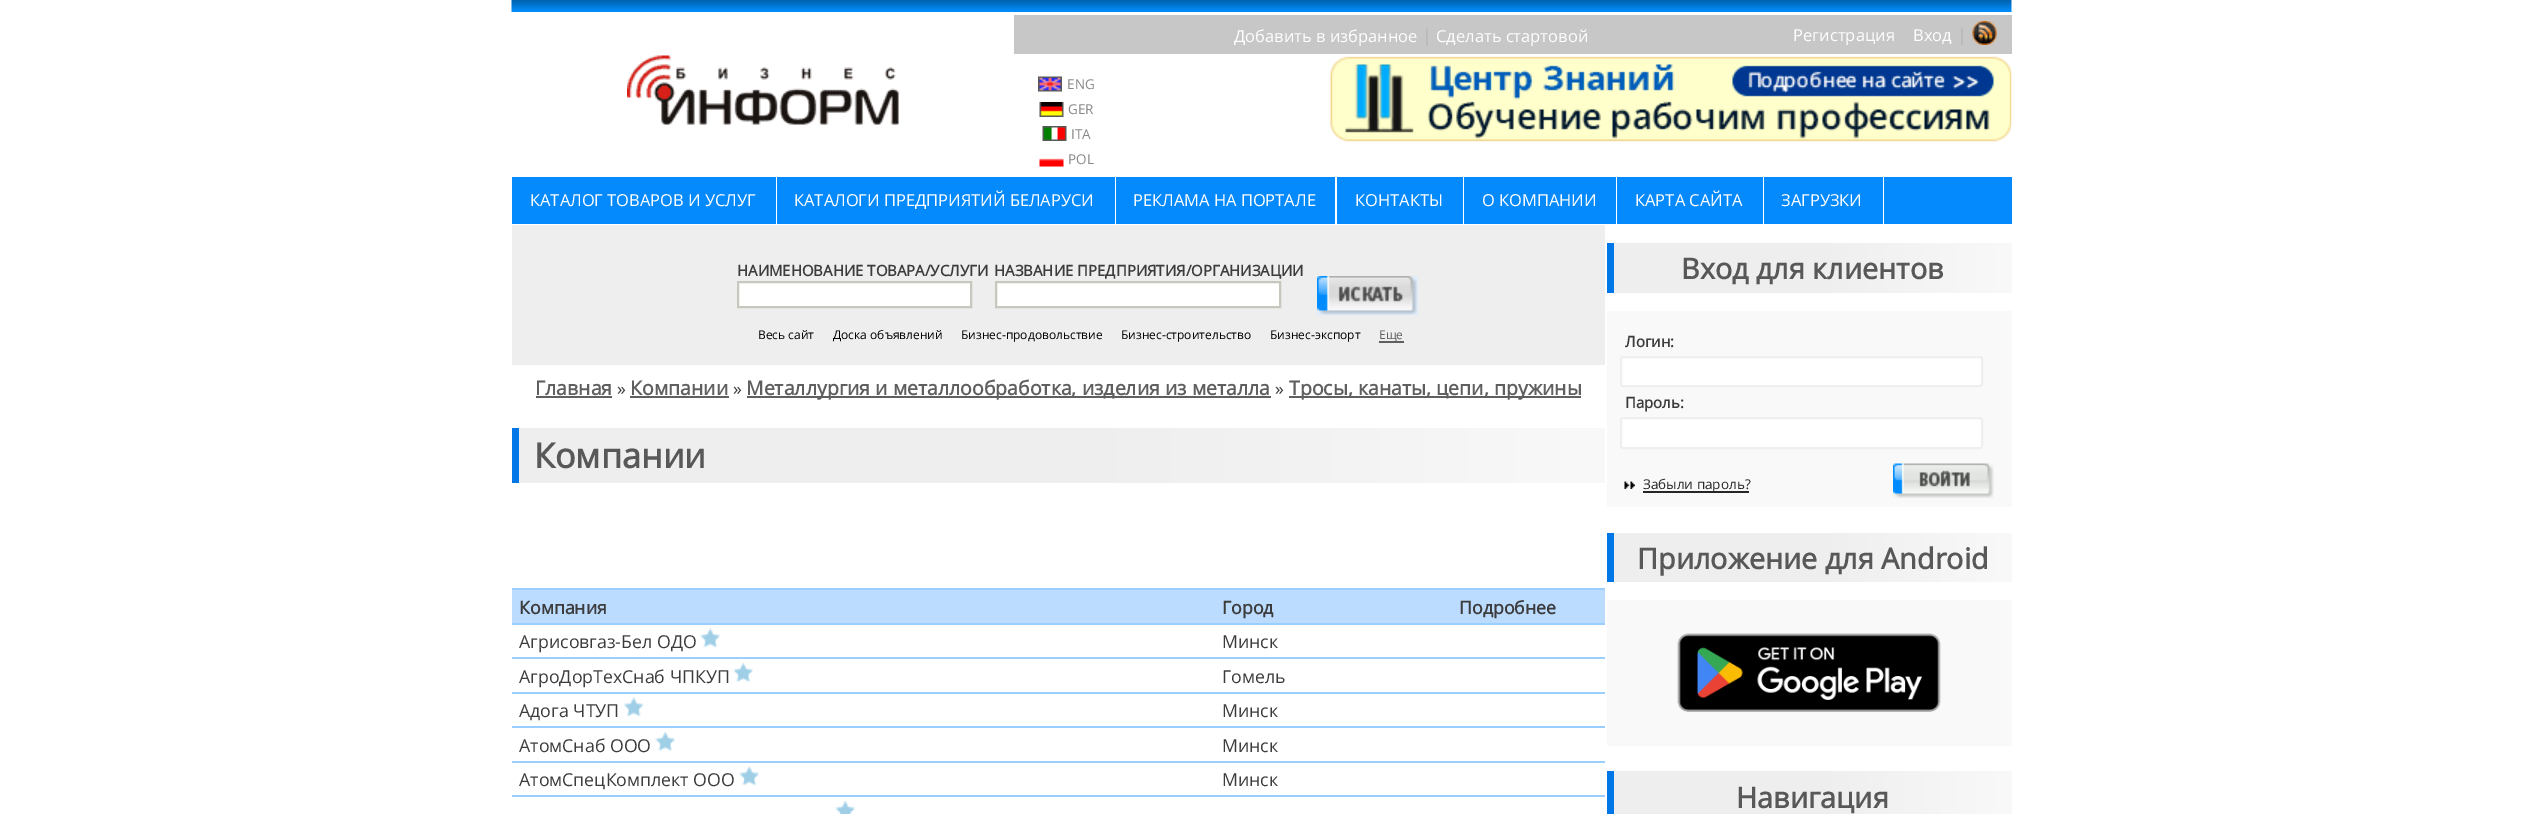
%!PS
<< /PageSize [2523 814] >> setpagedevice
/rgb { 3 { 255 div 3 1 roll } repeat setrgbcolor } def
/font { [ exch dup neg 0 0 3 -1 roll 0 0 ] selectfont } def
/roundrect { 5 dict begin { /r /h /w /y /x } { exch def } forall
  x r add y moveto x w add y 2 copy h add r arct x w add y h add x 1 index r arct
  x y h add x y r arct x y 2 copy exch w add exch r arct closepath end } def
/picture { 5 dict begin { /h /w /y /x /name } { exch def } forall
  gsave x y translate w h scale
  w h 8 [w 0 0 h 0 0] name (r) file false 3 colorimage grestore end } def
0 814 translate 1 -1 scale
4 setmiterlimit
255 255 255 rgb
0 0 2523 814 rectfill
(img/1.rgb) 511 0 1501 12 picture
199 199 199 rgb
1014 15 998 39 rectfill
(img/2.rgb) 1972 21 25 24 picture
(img/3.rgb) 627 55 272 70 picture
(img/4.rgb) 1038 76 24 16 picture
(img/5.rgb) 1039 102 25 15 picture
(img/6.rgb) 1042 126 25 15 picture
(img/7.rgb) 1039 158 25 9 picture
(img/8.rgb) 1330 56 682 86 picture
[
  [512 177 1500 47 5 138 253]
  [776 177 1 47 255 255 255]
  [1115 177 1 47 255 255 255]
  [1335 177 2 47 255 255 255]
  [1463 177 1 47 255 255 255]
  [1616 177 1 47 255 255 255]
  [1763 177 1 47 255 255 255]
  [1883 177 1 47 255 255 255]
  [512 225 1093 140 238 238 238]
] { aload pop rgb rectfill } forall
255 255 255 rgb
738 282 moveto 971 282 lineto 971 307 lineto 738 307 lineto closepath gsave fill grestore
200 199 190 rgb
2 setlinewidth
stroke
255 255 255 rgb
996 282 moveto 1280 282 lineto 1280 307 lineto 996 307 lineto closepath gsave fill grestore
200 199 190 rgb
stroke
(img/9.rgb) 1317 276 101 39 picture
[
  [1379 341 25 2 95 95 95]
  [536 396 76 2 95 95 95]
  [630 396 99 2 95 95 95]
  [747 396 524 2 95 95 95]
  [1289 396 292 2 95 95 95]
] { aload pop rgb rectfill } forall
gsave 519 428 moveto 1605 428 lineto 1605 483 lineto 519 483 lineto closepath clip newpath
<< /ShadingType 2 /ColorSpace /DeviceRGB /Coords [1605 455 519 455] /Extend [true true] /Function << /FunctionType 3 /Domain [0 1] /Functions [<< /FunctionType 2 /Domain [0 1] /C0 [0.976 0.976 0.976] /C1 [0.933 0.933 0.933] /N 1 >> << /FunctionType 2 /Domain [0 1] /C0 [0.933 0.933 0.933] /C1 [0.933 0.933 0.933] /N 1 >>] /Bounds [0.5] /Encode [0 1 0 1] >> >> shfill grestore
[
  [512 428 7 55 0 119 231]
  [512 590 1093 33 187 219 255]
  [512 588 1093 2 154 206 255]
  [512 623 1093 2 154 206 255]
] { aload pop rgb rectfill } forall
(img/10.rgb) 700 628 20 20 picture
512 657 1093 2 rectfill
(img/11.rgb) 733 663 20 20 picture
512 692 1093 2 rectfill
(img/12.rgb) 624 697 20 20 picture
512 726 1093 2 rectfill
(img/11.rgb) 655 732 20 20 picture
512 761 1093 2 rectfill
(img/10.rgb) 739 766 20 20 picture
512 795 1093 2 rectfill
(img/13.rgb) 835 801 20 13 picture
gsave 1614 243 moveto 2012 243 lineto 2012 293 lineto 1614 293 lineto closepath clip newpath
<< /ShadingType 2 /ColorSpace /DeviceRGB /Coords [2012 268 1614 268] /Extend [true true] /Function << /FunctionType 3 /Domain [0 1] /Functions [<< /FunctionType 2 /Domain [0 1] /C0 [0.976 0.976 0.976] /C1 [0.933 0.933 0.933] /N 1 >> << /FunctionType 2 /Domain [0 1] /C0 [0.933 0.933 0.933] /C1 [0.933 0.933 0.933] /N 1 >>] /Bounds [0.5] /Encode [0 1 0 1] >> >> shfill grestore
0 119 231 rgb
1607 243 7 50 rectfill
249 249 249 rgb
1607 311 405 196 rectfill
255 255 255 rgb
1621 357 361 29 2 roundrect gsave fill grestore
239 239 239 rgb
stroke
255 255 255 rgb
1621 418 361 30 2 roundrect gsave fill grestore
239 239 239 rgb
stroke
(img/14.rgb) 1624 481 11 8 picture
38 38 38 rgb
1643 491 106 2 rectfill
(img/15.rgb) 1893 463 101 35 picture
gsave 1614 533 moveto 2012 533 lineto 2012 582 lineto 1614 582 lineto closepath clip newpath
<< /ShadingType 2 /ColorSpace /DeviceRGB /Coords [2012 557 1614 557] /Extend [true true] /Function << /FunctionType 3 /Domain [0 1] /Functions [<< /FunctionType 2 /Domain [0 1] /C0 [0.976 0.976 0.976] /C1 [0.933 0.933 0.933] /N 1 >> << /FunctionType 2 /Domain [0 1] /C0 [0.933 0.933 0.933] /C1 [0.933 0.933 0.933] /N 1 >>] /Bounds [0.5] /Encode [0 1 0 1] >> >> shfill grestore
0 119 231 rgb
1607 533 7 49 rectfill
249 249 249 rgb
1607 600 405 146 rectfill
(img/16.rgb) 1677 633 264 79 picture
gsave 1614 771 moveto 2012 771 lineto 2012 814 lineto 1614 814 lineto closepath clip newpath
<< /ShadingType 2 /ColorSpace /DeviceRGB /Coords [2012 796 1614 796] /Extend [true true] /Function << /FunctionType 3 /Domain [0 1] /Functions [<< /FunctionType 2 /Domain [0 1] /C0 [0.976 0.976 0.976] /C1 [0.933 0.933 0.933] /N 1 >> << /FunctionType 2 /Domain [0 1] /C0 [0.933 0.933 0.933] /C1 [0.933 0.933 0.933] /N 1 >>] /Bounds [0.5] /Encode [0 1 0 1] >> >> shfill grestore
0 119 231 rgb
1607 771 7 43 rectfill
/OpenSans-Regular 16.5 font
255 255 255 rgb
1234 42 moveto (Добавить в избранное) show
/OpenSans-Regular 17.75 font
182 182 182 rgb
1422 42 moveto (|) show
/OpenSans-Regular 16.5 font
255 255 255 rgb
[
  [(Сделать стартовой) 1436 42]
  [(Регистрация) 1793 41]
  [(Вход) 1913 41]
] { aload pop moveto show } forall
/OpenSans-Regular 17.75 font
182 182 182 rgb
1957 41 moveto (|) show
/OpenSans-Regular 13.5 font
136 136 136 rgb
[
  [(ENG) 1067 89]
  [(GER) 1068 114]
  [(ITA) 1071 139]
  [(POL) 1068 164]
] { aload pop moveto show } forall
/OpenSans-Regular 16.5 font
255 255 255 rgb
[
  [(КАТАЛОГ ТОВАРОВ И УСЛУГ) 530 206]
  [(КАТАЛОГИ ПРЕДПРИЯТИЙ БЕЛАРУСИ) 794 206]
  [(РЕКЛАМА НА ПОРТАЛЕ) 1133 206]
  [(КОНТАКТЫ) 1355 206]
  [(О КОМПАНИИ) 1482 206]
  [(КАРТА САЙТА) 1635 206]
  [(ЗАГРУЗКИ) 1781 206]
] { aload pop moveto show } forall
/OpenSans-Bold 15 font
60 60 60 rgb
737 276 moveto (НАИМЕНОВАНИЕ ТОВАРА/УСЛУГИ) show
994 276 moveto (НАЗВАНИЕ ПРЕДПРИЯТИЯ/ОРГАНИЗАЦИИ) show
/OpenSans-Regular 12 font
0 0 0 rgb
[
  [(Весь сайт) 758 339]
  [(Доска объявлений) 833 339]
  [(Бизнес-продовольствие) 961 339]
  [(Бизнес-строительство) 1121 339]
  [(Бизнес-экспорт) 1270 339]
] { aload pop moveto show } forall
95 95 95 rgb
1379 339 moveto (Еще) show
/OpenSans-Bold 19.5 font
535 395 moveto (Главная) show
/OpenSans-Regular 17.75 font
60 60 60 rgb
617 395 moveto (») show
/OpenSans-Bold 19.5 font
95 95 95 rgb
630 395 moveto (Компании) show
/OpenSans-Regular 17.75 font
60 60 60 rgb
733 395 moveto (») show
/OpenSans-Bold 19.5 font
95 95 95 rgb
746 395 moveto (Металлургия и металлообработка, изделия из металла) show
/OpenSans-Regular 17.75 font
60 60 60 rgb
1275 395 moveto (») show
/OpenSans-Bold 19.5 font
95 95 95 rgb
1289 395 moveto (Тросы, канаты, цепи, пружины) show
/OpenSans-Bold 34.25 font
88 88 88 rgb
534 468 moveto (Компании) show
/OpenSans-Bold 17.75 font
60 60 60 rgb
[
  [(Компания) 519 614]
  [(Город) 1222 614]
  [(Подробнее) 1459 614]
] { aload pop moveto show } forall
/OpenSans-Regular 17.75 font
[
  [(Агрисовгаз-Бел ОДО) 519 648]
  [(Минск) 1222 648]
  [(АгроДорТехСнаб ЧПКУП) 519 683]
  [(Гомель) 1222 683]
  [(Адога ЧТУП) 519 717]
  [(Минск) 1222 717]
  [(АтомСнаб ООО) 519 752]
  [(Минск) 1222 752]
  [(АтомСпецКомплект ООО) 519 786]
  [(Минск) 1222 786]
] { aload pop moveto show } forall
/OpenSans-Bold 28.75 font
88 88 88 rgb
1681 279 moveto (Вход для клиентов) show
/OpenSans-Bold 15 font
60 60 60 rgb
1625 347 moveto (Логин:) show
1625 408 moveto (Пароль:) show
/OpenSans-Regular 13.5 font
38 38 38 rgb
1643 489 moveto (Забыли пароль?) show
/OpenSans-Bold 28.75 font
88 88 88 rgb
1637 569 moveto (Приложение для Android) show
1736 808 moveto (Навигация) show
showpage
